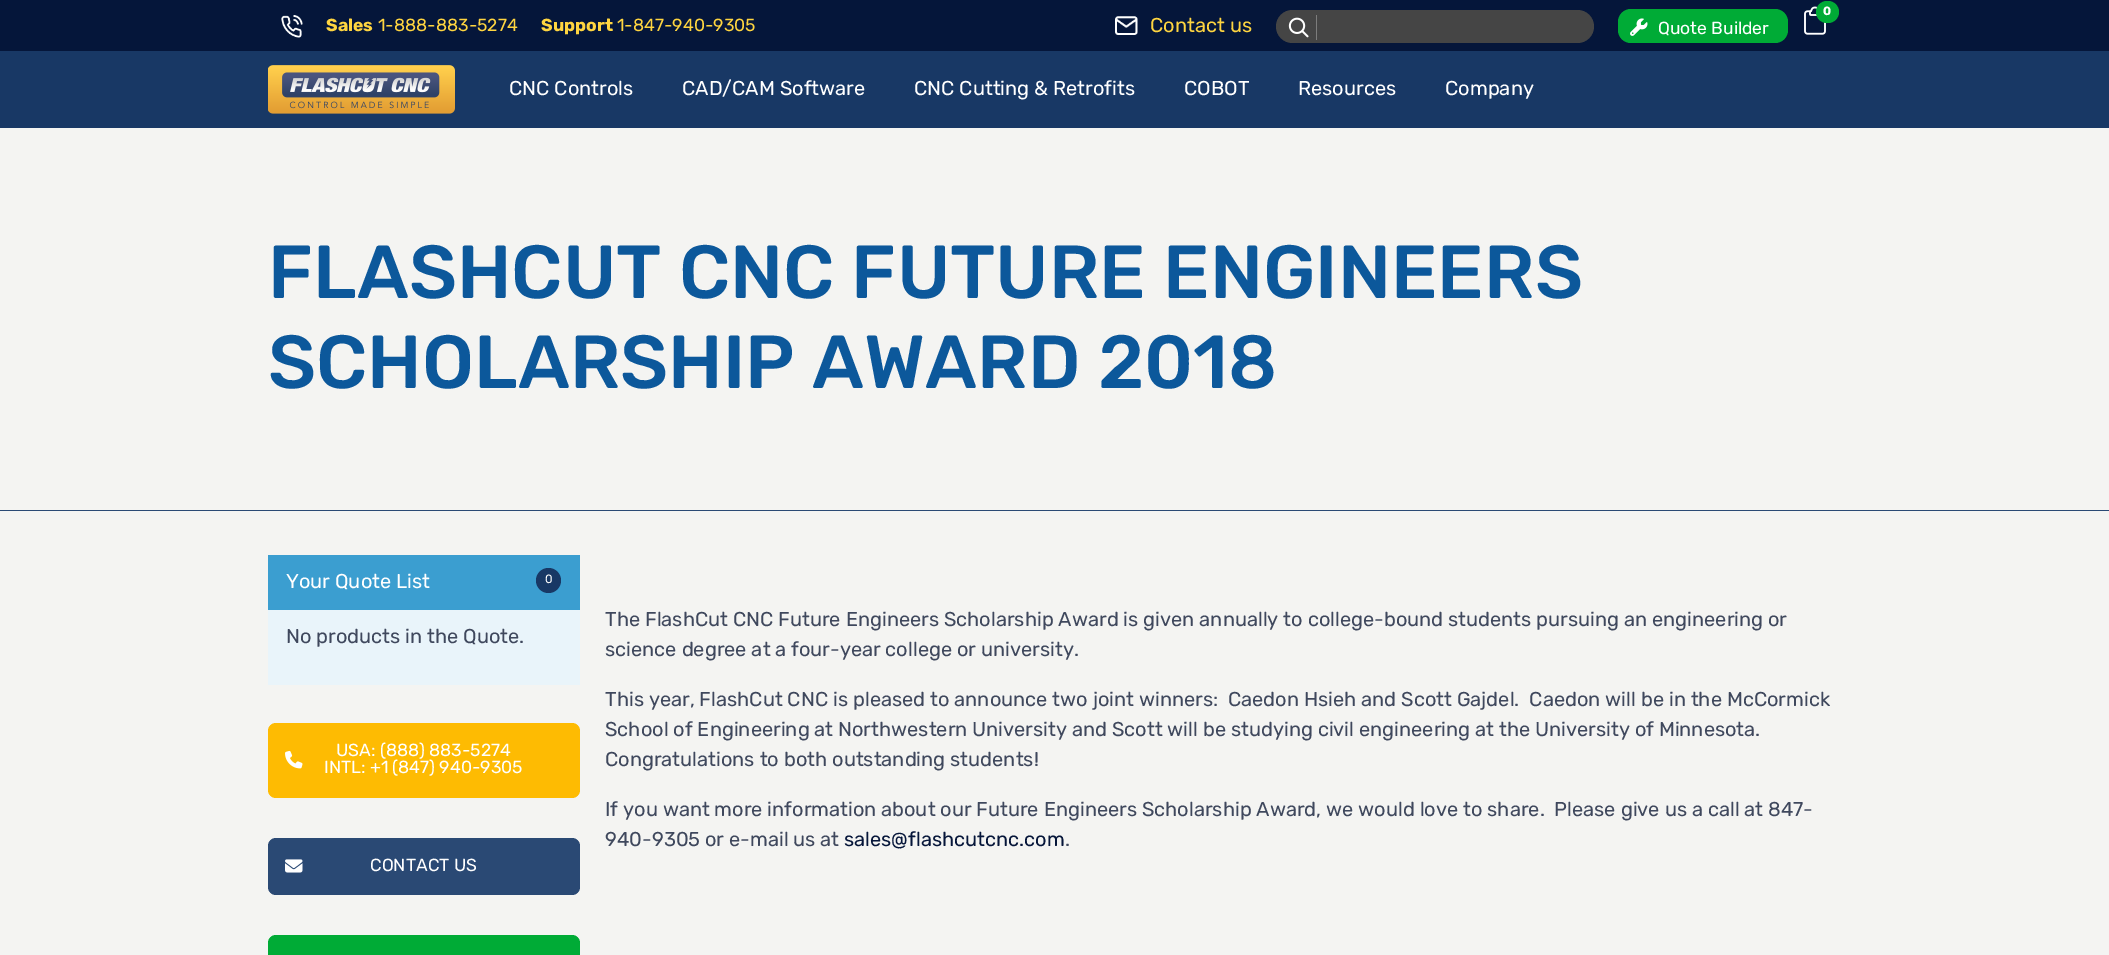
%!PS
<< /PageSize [2109 955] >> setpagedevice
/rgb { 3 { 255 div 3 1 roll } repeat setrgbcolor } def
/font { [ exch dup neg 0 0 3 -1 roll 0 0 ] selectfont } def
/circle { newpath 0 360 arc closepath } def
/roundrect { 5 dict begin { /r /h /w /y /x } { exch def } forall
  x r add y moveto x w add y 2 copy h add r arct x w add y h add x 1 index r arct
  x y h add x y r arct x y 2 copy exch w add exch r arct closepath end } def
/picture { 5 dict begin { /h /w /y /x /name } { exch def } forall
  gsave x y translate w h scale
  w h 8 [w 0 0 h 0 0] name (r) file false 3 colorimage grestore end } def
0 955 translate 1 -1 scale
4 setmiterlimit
244 244 242 rgb
0 0 2109 955 rectfill
24 56 101 rgb
0 51 2109 77 rectfill
5 22 58 rgb
0 0 2109 51 rectfill
(img/1.rgb) 281 15 22 23 picture
(img/2.rgb) 1115 16 23 19 picture
69 69 69 rgb
1276 10 318 33 16.5 roundrect fill
(img/3.rgb) 1288 17 21 21 picture
125 125 125 rgb
1316 15 1 25 rectfill
0 171 54 rgb
1618 9 170 34 13 roundrect fill
(img/4.rgb) 1630 18 18 18 picture
(img/5.rgb) 1804 6 22 29 picture
1816 1 23 22 11 roundrect fill
(img/6.rgb) 268 65 187 49 picture
42 73 116 rgb
0 510 2109 1 rectfill
59 158 208 rgb
268 555 312 55 rectfill
24 56 101 rgb
548.5 580.5 12.5 circle fill
233 244 250 rgb
268 610 312 75 rectfill
254 187 2 rgb
268 723 312 75 8 roundrect fill
(img/7.rgb) 285 750 18 19 picture
42 73 116 rgb
268 838 312 57 8 roundrect fill
(img/8.rgb) 285 859 18 14 picture
0 171 54 rgb
268 935 312 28 8 roundrect fill
/Rubik-Bold 17.5 font
255 213 64 rgb
326 31 moveto (Sales) show
/Rubik-Regular 17.5 font
378 31 moveto (1-888-883-5274) show
/Rubik-Bold 17.5 font
541 31 moveto (Support) show
/Rubik-Regular 17.5 font
617 31 moveto (1-847-940-9305) show
/Rubik-Regular 20 font
1150 32 moveto (Contact us) show
/Rubik-Regular 17.5 font
255 255 255 rgb
1658 34 moveto (Quote Builder) show
/Rubik-Bold 12 font
1823 15 moveto (0) show
/Rubik-Regular 20 font
[
  [(CNC Controls) 509 95]
  [(CAD/CAM Software) 682 95]
  [(CNC Cutting & Retrofits) 914 95]
  [(COBOT) 1184 95]
  [(Resources) 1298 95]
  [(Company) 1445 95]
] { aload pop moveto show } forall
/Rubik-Medium 75 font
12 88 155 rgb
268 298 moveto (FLASHCUT CNC FUTURE ENGINEERS) show
268 388 moveto (SCHOLARSHIP AWARD 2018) show
/Rubik-Regular 20 font
255 255 255 rgb
286 588 moveto (Your Quote List) show
/Rubik-Regular 12 font
545 583 moveto (0) show
/Rubik-Regular 20 font
63 72 93 rgb
286 643 moveto (No products in the Quote.) show
/Rubik-Regular 17.5 font
255 255 255 rgb
[
  [(USA: \(888\) 883-5274) 336 756]
  [(INTL: +1 \(847\) 940-9305) 324 773]
  [(CONTACT US) 370 871]
] { aload pop moveto show } forall
/Rubik-Regular 20 font
63 72 93 rgb
[
  [(The FlashCut CNC Future Engineers Scholarship Award is given annually to college-bound students pursuing an engineering or) 605 626]
  [(science degree at a four-year college or university.) 605 656]
  [(This year, FlashCut CNC is pleased to announce two joint winners:  Caedon Hsieh and Scott Gajdel.  Caedon will be in the McCormick) 605 706]
  [(School of Engineering at Northwestern University and Scott will be studying civil engineering at the University of Minnesota.) 605 736]
  [(Congratulations to both outstanding students!) 605 766]
  [(If you want more information about our Future Engineers Scholarship Award, we would love to share.  Please give us a call at 847-) 605 816]
  [(940-9305 or e-mail us at) 605 846]
] { aload pop moveto show } forall
6 22 58 rgb
844 846 moveto (sales@flashcutcnc.com) show
63 72 93 rgb
1065 846 moveto (.) show
showpage
